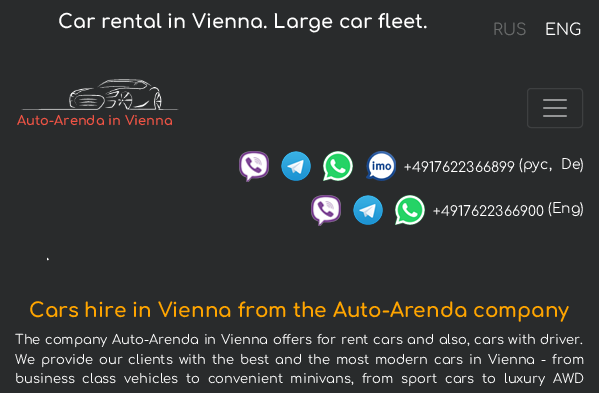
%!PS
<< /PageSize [599 393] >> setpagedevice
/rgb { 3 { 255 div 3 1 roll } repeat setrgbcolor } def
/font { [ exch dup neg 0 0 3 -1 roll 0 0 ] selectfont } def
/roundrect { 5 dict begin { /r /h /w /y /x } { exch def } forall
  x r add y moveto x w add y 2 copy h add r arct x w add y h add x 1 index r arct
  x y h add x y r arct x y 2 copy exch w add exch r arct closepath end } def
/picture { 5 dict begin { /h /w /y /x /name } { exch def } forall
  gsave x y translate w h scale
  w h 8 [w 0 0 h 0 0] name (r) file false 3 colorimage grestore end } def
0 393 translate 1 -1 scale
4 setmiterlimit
41 43 44 rgb
0 0 599 393 rectfill
(img/1.rgb) 21 79 158 31 picture
62 64 65 rgb
527.5 88.5 55 39 3.5 roundrect stroke
(img/2.rgb) 543 99 24 18 picture
(img/3.rgb) 239 151 30 31 picture
(img/4.rgb) 281 151 30 30 picture
(img/5.rgb) 323 151 30 30 picture
(img/6.rgb) 366 151 30 30 picture
(img/3.rgb) 311 195 30 31 picture
(img/4.rgb) 353 195 30 30 picture
(img/5.rgb) 395 195 30 30 picture
(img/7.rgb) 47 257 2 4 picture
/Comfortaa-Bold 19.25 font
255 255 255 rgb
58 28 moveto (Car rental in Vienna. Large car fleet.) show
/Comfortaa-Regular 16 font
105 107 107 rgb
493 35 moveto (RUS) show
255 255 255 rgb
545 35 moveto (ENG) show
/Comfortaa-Bold 13 font
239 84 69 rgb
17 125 moveto (Auto-Arenda in Vienna) show
/Comfortaa-Regular 14 font
255 255 255 rgb
[
  [(+4917622366899) 404 172]
  [(\(рус,) 519 169]
  [(De\)) 561 169]
  [(+4917622366900) 433 216]
  [(\(Eng\)) 548 213]
] { aload pop moveto show } forall
/Comfortaa-Bold 20 font
255 165 0 rgb
29 317 moveto (Cars hire in Vienna from the Auto-Arenda company) show
/Comfortaa-Regular 13 font
255 255 255 rgb
15 344 moveto 0.75 0 32 (The company Auto-Arenda in Vienna offers for rent cars and also, cars with driver.) widthshow
15 364 moveto 2.1 0 32 (We provide our clients with the best and the most modern cars in Vienna - from) widthshow
15 383 moveto 3.9 0 32 (business class vehicles to convenient minivans, from sport cars to luxury AWD) widthshow
showpage
